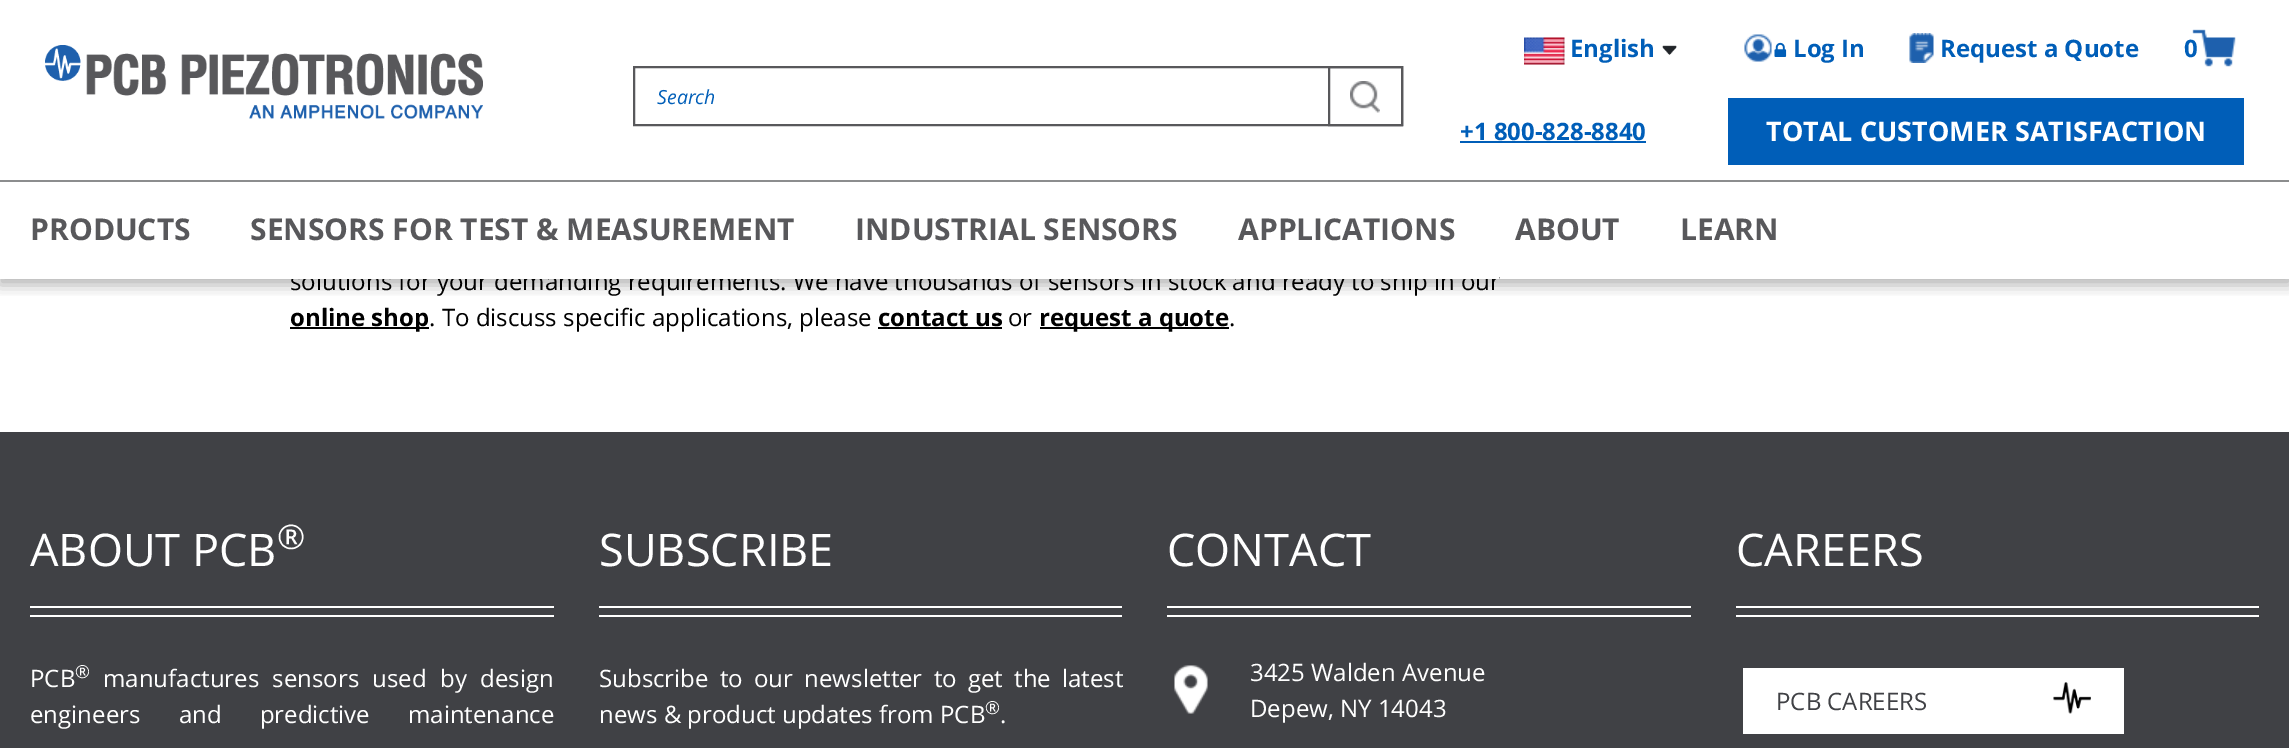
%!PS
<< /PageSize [2289 748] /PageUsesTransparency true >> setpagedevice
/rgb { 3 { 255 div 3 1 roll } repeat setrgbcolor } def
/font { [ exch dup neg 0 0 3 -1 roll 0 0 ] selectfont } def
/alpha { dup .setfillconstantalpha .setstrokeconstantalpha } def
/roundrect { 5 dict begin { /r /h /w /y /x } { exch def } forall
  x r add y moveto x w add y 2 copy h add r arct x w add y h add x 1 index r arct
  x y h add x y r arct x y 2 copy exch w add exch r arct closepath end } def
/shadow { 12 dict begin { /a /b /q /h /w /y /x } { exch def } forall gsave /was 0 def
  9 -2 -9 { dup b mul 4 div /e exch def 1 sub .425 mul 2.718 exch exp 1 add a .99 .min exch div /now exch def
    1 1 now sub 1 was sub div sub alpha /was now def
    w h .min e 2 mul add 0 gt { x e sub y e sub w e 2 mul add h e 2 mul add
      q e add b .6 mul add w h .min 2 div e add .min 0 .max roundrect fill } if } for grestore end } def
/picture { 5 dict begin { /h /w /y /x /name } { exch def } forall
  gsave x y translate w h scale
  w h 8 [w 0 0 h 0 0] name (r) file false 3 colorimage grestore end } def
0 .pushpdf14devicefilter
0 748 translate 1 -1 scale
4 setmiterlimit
255 255 255 rgb
0 0 2289 748 rectfill
[
  [290 327 139 2 0 0 0]
  [878 327 124 2 0 0 0]
  [1040 327 189 2 0 0 0]
  [0 432 2289 316 64 65 69]
  [30 606 524 2 255 255 255]
  [30 615 524 2 255 255 255]
  [599 606 523 2 255 255 255]
  [599 615 523 2 255 255 255]
  [1167 606 524 2 255 255 255]
  [1167 615 524 2 255 255 255]
] { aload pop rgb rectfill } forall
(img/9.rgb) 1174 665 34 49 picture
[
  [1736 606 523 2 255 255 255]
  [1736 615 523 2 255 255 255]
  [1743 668 381 66 255 255 255]
] { aload pop rgb rectfill } forall
(img/10.rgb) 2053 682 38 32 picture
/OpenSans-Regular 24 font
0 0 0 rgb
290 290 moveto (solutions for your demanding requirements. We have thousands of sensors in stock and ready to ship in our) show
255 255 255 rgb
291 271 1208 8 rectfill
gsave
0 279 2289 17 rectclip
0 0 0 rgb
-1 3 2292 282 0 7.5 0.3 shadow
grestore
88 88 91 rgb
2 setlinewidth
634 67 768 58 rectstroke
(img/2.rgb) 1350 81 30 32 picture
1329 67 73 58 rectstroke
/OpenSans-Italic 19.5 font
0 94 184 rgb
657 104 moveto (Search) show
/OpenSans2-Bold 30 font
88 88 91 rgb
[
  [(LEARN) 1680 240]
  [(ABOUT) 1515 240]
  [(APPLICATIONS) 1238 240]
  [(INDUSTRIAL SENSORS) 855 240]
  [(SENSORS FOR TEST & MEASUREMENT) 250 240]
  [(PRODUCTS) 30 240]
] { aload pop moveto show } forall
140 141 142 rgb
0 180 2289 2 rectfill
(img/4.rgb) 1662 45 15 10 picture
/OpenSans2-Bold 24 font
0 94 184 rgb
1570 57 moveto (English) show
(img/3.rgb) 1524 37 41 28 picture
/OpenSans-Bold 24 font
1793 57 moveto (Log In) show
(img/6.rgb) 1774 42 13 15 picture
(img/8.rgb) 2192 29 44 38 picture
/OpenSans2-Bold 24 font
2184 57 moveto (0) show
1728 98 516 67 rectfill
/OpenSans2-Bold 27 font
255 255 255 rgb
1766 141 moveto (TOTAL CUSTOMER SATISFACTION) show
/OpenSans-Bold 24 font
0 94 184 rgb
1460 140 moveto (+1 800-828-8840) show
1460 141 186 2 rectfill
(img/5.rgb) 1744 34 28 28 picture
/OpenSans2-Bold 24 font
1940 57 moveto (Request a Quote) show
(img/7.rgb) 1909 33 25 30 picture
(img/1.rgb) 45 45 438 74 picture
/OpenSans-Bold 24 font
0 0 0 rgb
290 326 moveto (online shop) show
/OpenSans-Regular 24 font
429 326 moveto (. To discuss specific applications, please) show
/OpenSans-Bold 24 font
878 326 moveto (contact us) show
/OpenSans-Regular 24 font
1008 326 moveto (or) show
/OpenSans-Bold 24 font
1039 326 moveto (request a quote) show
/OpenSans-Regular 24 font
1229 326 moveto (.) show
/OpenSans-Regular 45 font
255 255 255 rgb
30 566 moveto (ABOUT PCB) show
/OpenSans-Regular 34 font
277 549 moveto (®) show
/OpenSans-Regular 24 font
30 687 moveto (PCB) show
/OpenSans-Regular 18 font
75 678 moveto (®) show
/OpenSans-Regular 24 font
103 687 moveto 7 0 32 (manufactures sensors used by design) widthshow
30 723 moveto 32 0 32 (engineers and predictive maintenance) widthshow
/OpenSans-Regular 45 font
599 566 moveto (SUBSCRIBE) show
/OpenSans-Regular 24 font
599 687 moveto 5 0 32 (Subscribe to our newsletter to get the latest) widthshow
599 723 moveto (news & product updates from PCB) show
/OpenSans-Regular 18 font
985 714 moveto (®) show
/OpenSans-Regular 24 font
1000 723 moveto (.) show
/OpenSans-Regular 45 font
1167 566 moveto (CONTACT) show
/OpenSans-Regular 24 font
1250 681 moveto (3425 Walden Avenue) show
1250 717 moveto (Depew, NY 14043) show
/OpenSans-Regular 45 font
1736 566 moveto (CAREERS) show
/OpenSans2-Regular 24 font
64 65 69 rgb
1776 710 moveto (PCB CAREERS) show
.poppdf14devicefilter showpage
